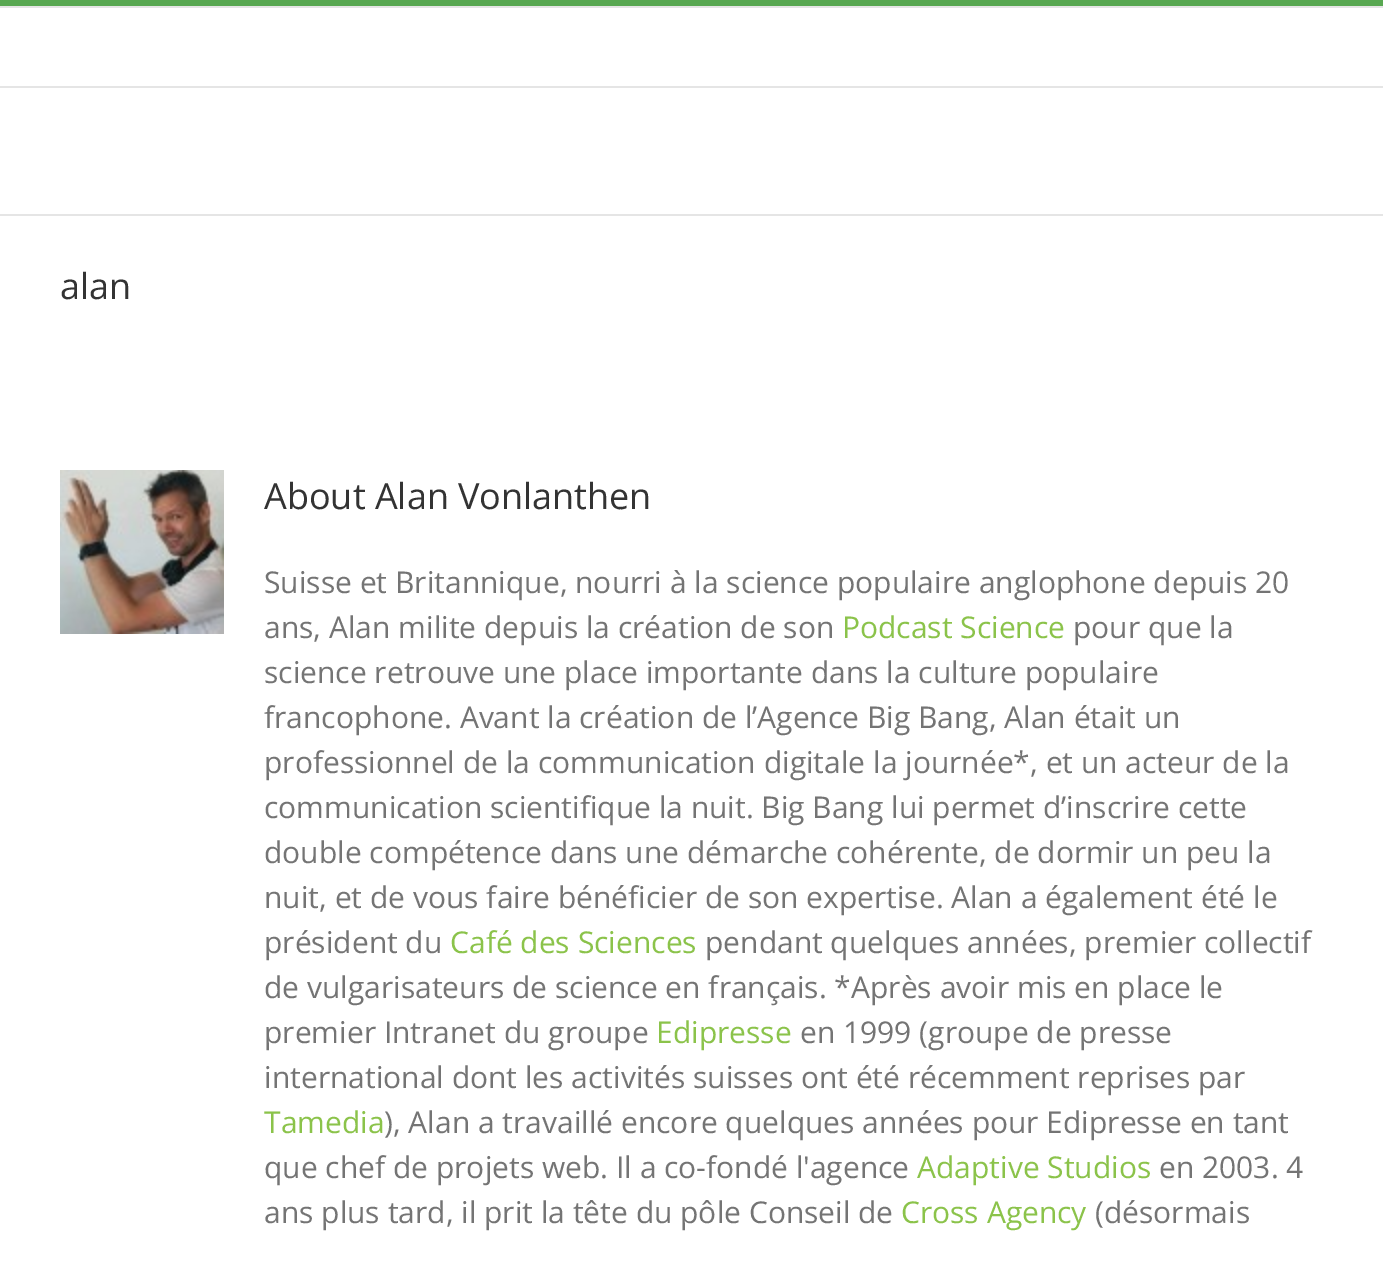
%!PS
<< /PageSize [1383 1261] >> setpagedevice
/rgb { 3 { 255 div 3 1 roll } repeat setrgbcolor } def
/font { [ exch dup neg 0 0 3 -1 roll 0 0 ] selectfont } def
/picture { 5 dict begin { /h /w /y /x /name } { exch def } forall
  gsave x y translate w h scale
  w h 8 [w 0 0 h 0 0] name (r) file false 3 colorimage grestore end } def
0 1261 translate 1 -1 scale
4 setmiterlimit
255 255 255 rgb
0 0 1383 1261 rectfill
[
  [0 0 1383 6 88 168 81]
  [0 86 1383 2 229 229 229]
  [0 6 1383 2 229 229 229]
  [0 214 1383 2 229 229 229]
] { aload pop rgb rectfill } forall
(img/1.rgb) 60 470 164 164 picture
/OpenSans-Regular 36 font
51 51 51 rgb
60 299 moveto (alan) show
264 509 moveto (About Alan Vonlanthen) show
/OpenSans-Regular 30 font
116 116 116 rgb
264 593 moveto (Suisse et Britannique, nourri à la science populaire anglophone depuis 20) show
264 638 moveto (ans, Alan milite depuis la création de son) show
139 195 74 rgb
842 638 moveto (Podcast Science) show
116 116 116 rgb
[
  [(pour que la) 1073 638]
  [(science retrouve une place importante dans la culture populaire) 264 683]
  [(francophone. Avant la création de l’Agence Big Bang, Alan était un) 264 728]
  [(professionnel de la communication digitale la journée*, et un acteur de la) 264 773]
  [(communication scientifique la nuit. Big Bang lui permet d’inscrire cette) 264 818]
  [(double compétence dans une démarche cohérente, de dormir un peu la) 264 863]
  [(nuit, et de vous faire bénéficier de son expertise. Alan a également été le) 264 908]
  [(président du) 264 953]
] { aload pop moveto show } forall
139 195 74 rgb
450 953 moveto (Café des Sciences) show
116 116 116 rgb
[
  [(pendant quelques années, premier collectif) 705 953]
  [(de vulgarisateurs de science en français. *Après avoir mis en place le) 264 998]
  [(premier Intranet du groupe) 264 1043]
] { aload pop moveto show } forall
139 195 74 rgb
656 1043 moveto (Edipresse) show
116 116 116 rgb
800 1043 moveto (en 1999 \(groupe de presse) show
264 1088 moveto (international dont les activités suisses ont été récemment reprises par) show
139 195 74 rgb
264 1133 moveto (Tamedia) show
116 116 116 rgb
384 1133 moveto (\), Alan a travaillé encore quelques années pour Edipresse en tant) show
264 1178 moveto (que chef de projets web. Il a co-fondé l'agence) show
139 195 74 rgb
917 1178 moveto (Adaptive Studios) show
116 116 116 rgb
1159 1178 moveto (en 2003. 4) show
264 1223 moveto (ans plus tard, il prit la tête du pôle Conseil de) show
139 195 74 rgb
901 1223 moveto (Cross Agency) show
116 116 116 rgb
1095 1223 moveto (\(désormais) show
showpage
